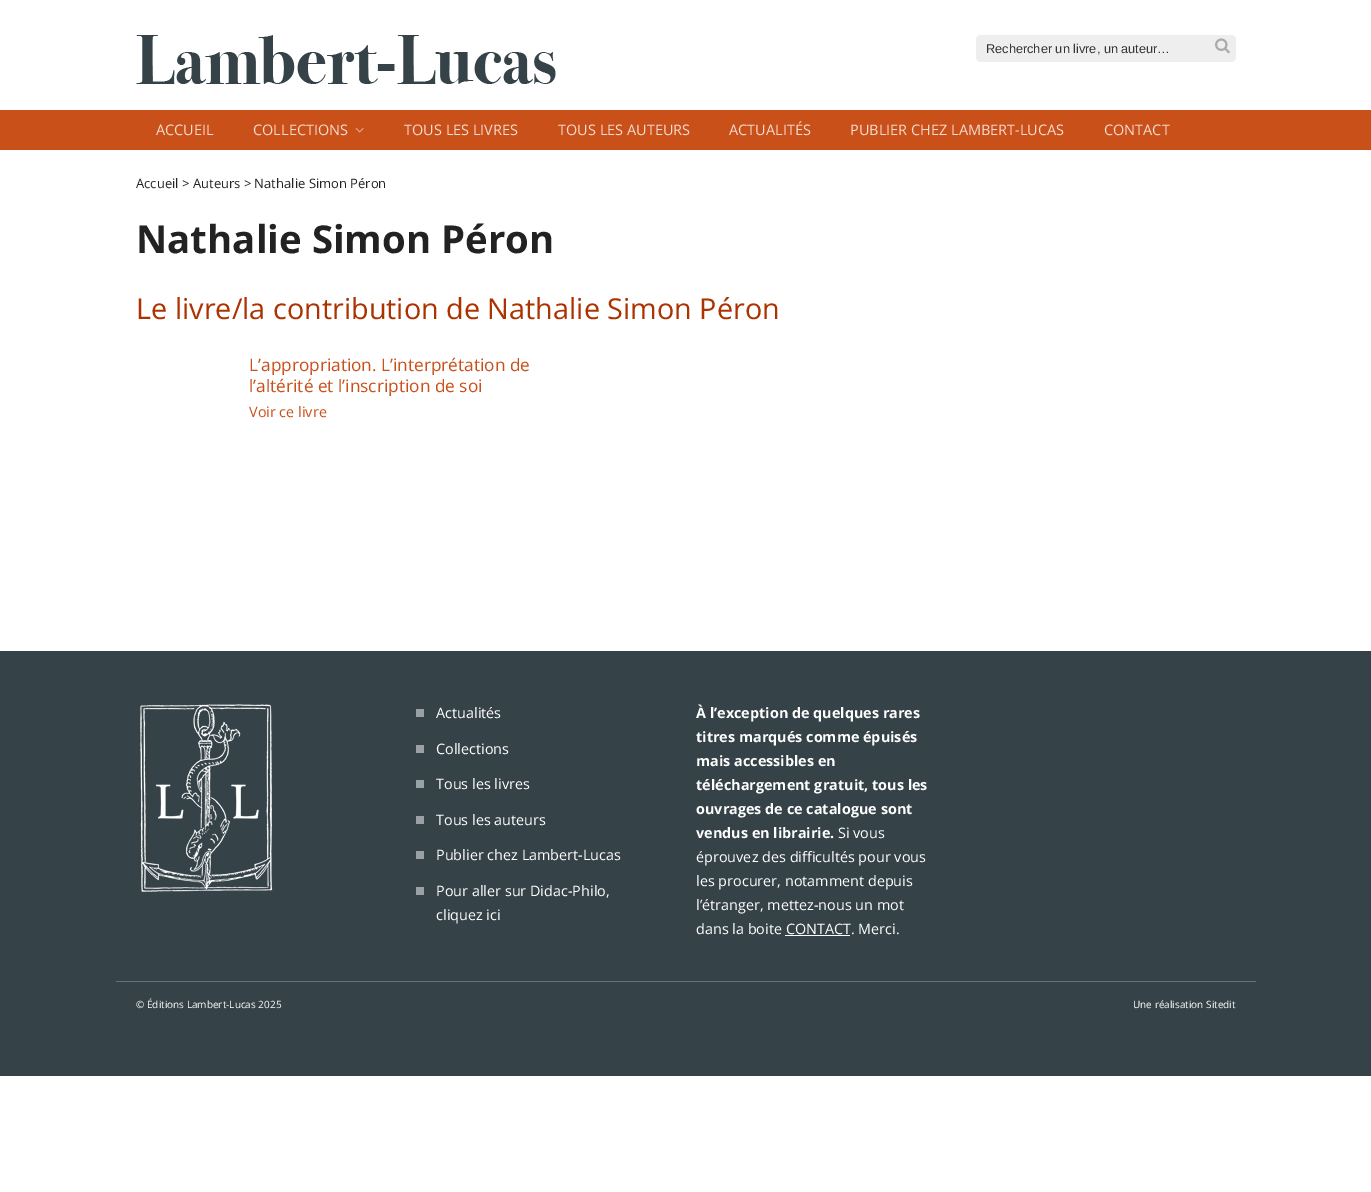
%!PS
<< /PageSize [1371 1192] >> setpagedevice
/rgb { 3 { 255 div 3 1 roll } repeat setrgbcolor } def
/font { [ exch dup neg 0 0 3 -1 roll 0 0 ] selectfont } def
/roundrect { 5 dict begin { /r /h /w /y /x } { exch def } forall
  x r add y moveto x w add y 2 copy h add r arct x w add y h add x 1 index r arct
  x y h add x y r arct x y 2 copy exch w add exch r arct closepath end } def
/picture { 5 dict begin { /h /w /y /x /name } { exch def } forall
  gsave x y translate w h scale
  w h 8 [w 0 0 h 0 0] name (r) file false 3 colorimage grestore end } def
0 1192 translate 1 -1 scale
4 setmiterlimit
255 255 255 rgb
0 0 1371 1192 rectfill
(img/1.rgb) 136 35 420 49 picture
238 238 238 rgb
976 35 260 27 5 roundrect fill
(img/2.rgb) 1215 38 15 16 picture
202 80 26 rgb
0 110 1371 40 rectfill
(img/3.rgb) 355 128 9 5 picture
53 66 72 rgb
0 651 1371 425 rectfill
(img/4.rgb) 140 704 133 188 picture
[
  [416 709 8 8 154 161 164]
  [416 745 8 8 154 161 164]
  [416 780 8 8 154 161 164]
  [416 816 8 8 154 161 164]
  [416 851 8 8 154 161 164]
  [416 887 8 8 154 161 164]
  [785 935 65 1 255 255 255]
  [116 981 1140 1 104 113 118]
] { aload pop rgb rectfill } forall
/LiberationSans-Regular 12.75 font
51 51 51 rgb
986 53 moveto (Rechercher un livre, un auteur…) show
/OpenSans-Regular 14.5 font
244 220 209 rgb
[
  [(ACCUEIL) 156 135]
  [(COLLECTIONS) 253 135]
  [(TOUS LES LIVRES) 404 135]
  [(TOUS LES AUTEURS) 558 135]
  [(ACTUALITÉS) 729 135]
  [(PUBLIER CHEZ LAMBERT-LUCAS) 850 135]
  [(CONTACT) 1104 135]
] { aload pop moveto show } forall
/OpenSans-Regular 13 font
34 34 34 rgb
136 188 moveto (Accueil > Auteurs > Nathalie Simon Péron) show
/OpenSans-Bold 38.4 font
136 253 moveto (Nathalie Simon Péron) show
/OpenSans-Regular 28.8 font
172 50 0 rgb
136 319 moveto (Le livre/la contribution de Nathalie Simon Péron) show
/OpenSans-Regular 17.25 font
202 80 26 rgb
249 371 moveto (L’appropriation. L’interprétation de) show
249 392 moveto (l’altérité et l’inscription de soi) show
/OpenSans-Regular 14.4 font
249 417 moveto (Voir ce livre) show
255 255 255 rgb
[
  [(Actualités) 436 718]
  [(Collections) 436 754]
  [(Tous les livres) 436 789]
  [(Tous les auteurs) 436 825]
  [(Publier chez Lambert-Lucas) 436 860]
  [(Pour aller sur Didac-Philo,) 436 896]
  [(cliquez ici) 436 920]
] { aload pop moveto show } forall
/OpenSans-Bold 14.4 font
[
  [(À l’exception de quelques rares) 696 718]
  [(titres marqués comme épuisés) 696 742]
  [(mais accessibles en) 696 766]
  [(téléchargement gratuit, tous les) 696 790]
  [(ouvrages de ce catalogue sont) 696 814]
  [(vendus en librairie.) 696 838]
] { aload pop moveto show } forall
/OpenSans-Regular 14.4 font
[
  [(Si vous) 838 838]
  [(éprouvez des difficultés pour vous) 696 862]
  [(les procurer, notamment depuis) 696 886]
  [(l’étranger, mettez-nous un mot) 696 910]
  [(dans la boite CONTACT. Merci.) 696 934]
] { aload pop moveto show } forall
/OpenSans-Regular 10 font
136 1008 moveto (© Éditions Lambert-Lucas 2025) show
1133 1008 moveto (Une réalisation Sitedit) show
showpage
